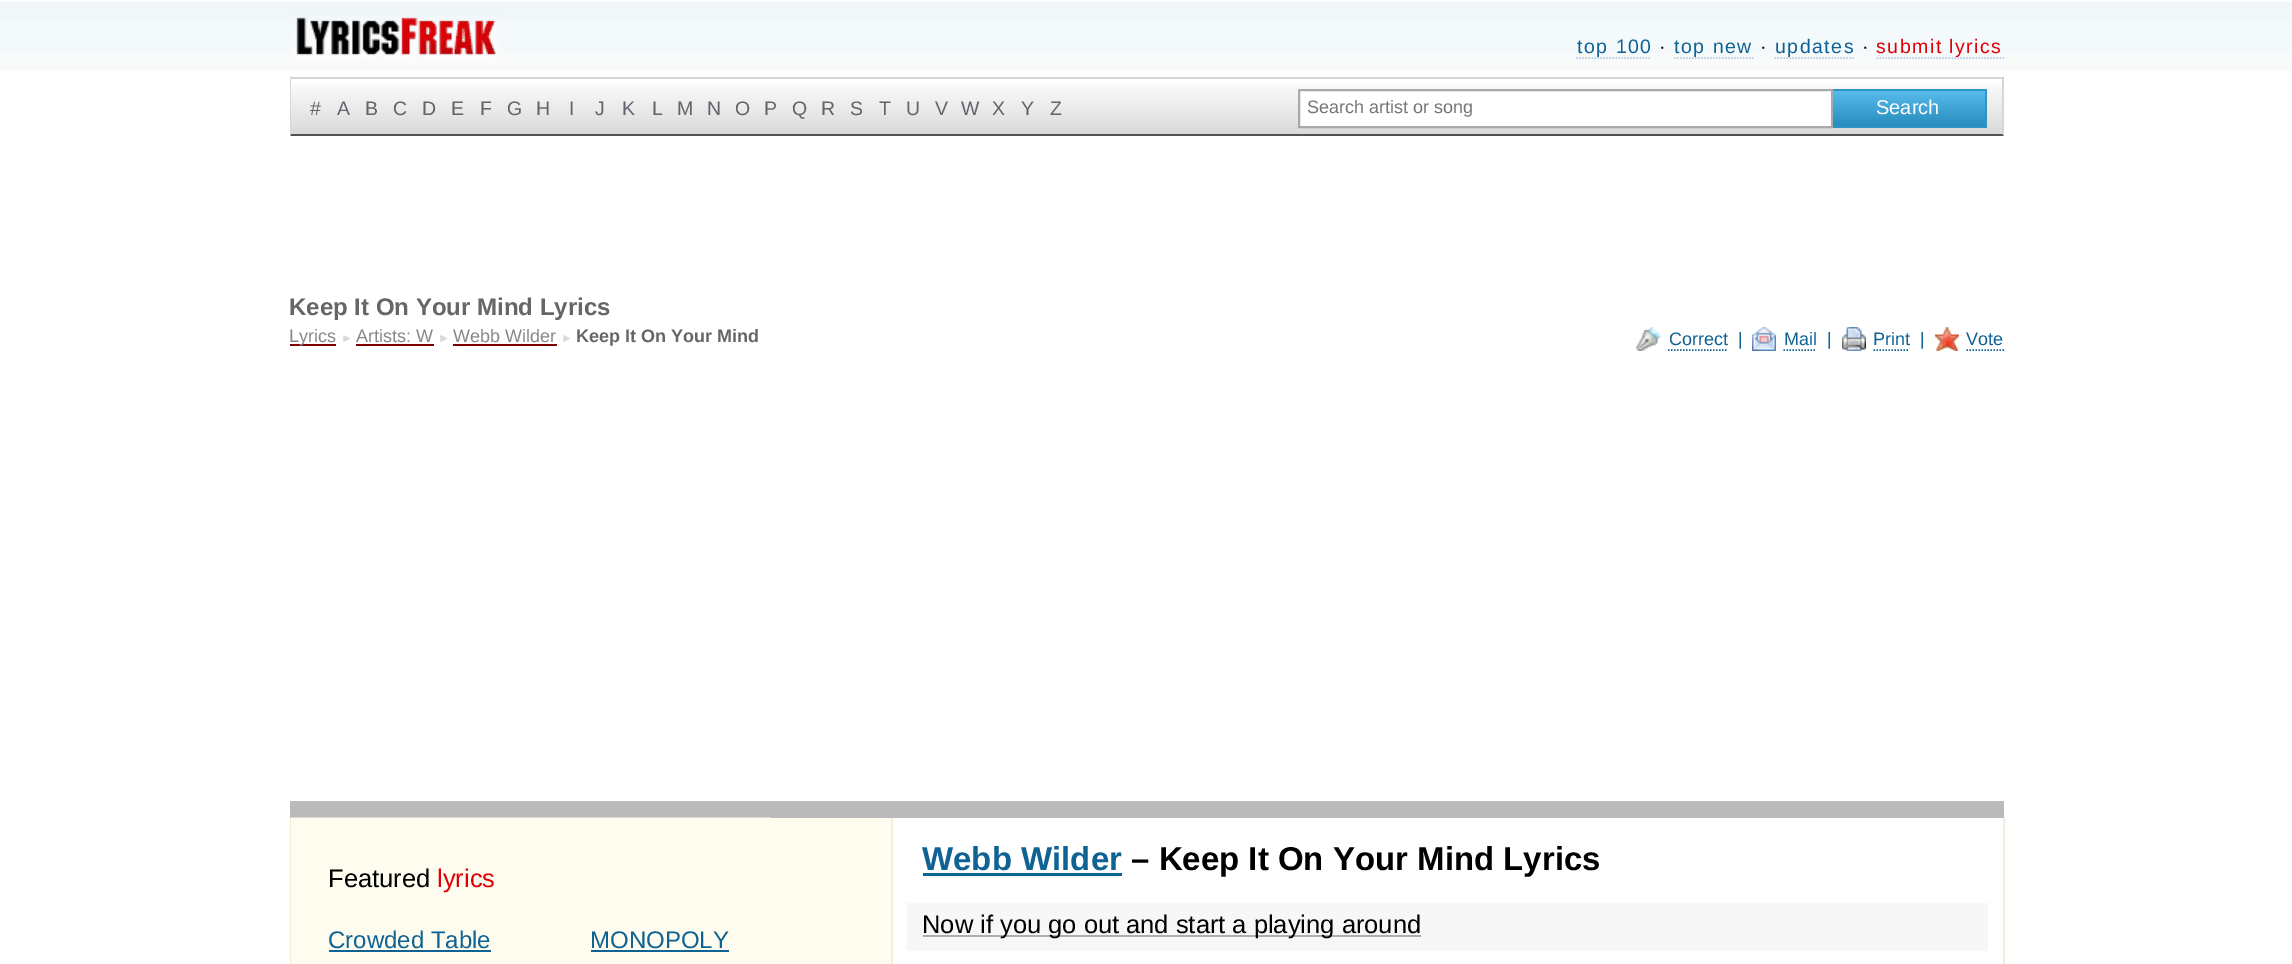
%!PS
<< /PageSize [2292 964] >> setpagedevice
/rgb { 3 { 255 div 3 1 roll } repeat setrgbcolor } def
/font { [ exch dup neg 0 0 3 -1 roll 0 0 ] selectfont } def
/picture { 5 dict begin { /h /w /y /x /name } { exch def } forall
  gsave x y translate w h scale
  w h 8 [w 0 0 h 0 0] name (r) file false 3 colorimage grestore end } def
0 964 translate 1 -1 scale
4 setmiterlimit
255 255 255 rgb
0 0 2292 964 rectfill
(img/1.rgb) 0 1 2292 70 picture
(img/2.rgb) 289 15 212 46 picture
178 199 231 rgb
1.5 setlinewidth
[1.5 1.5] 0 setdash
1576.5 58 moveto 1651.5 58 lineto stroke
1674 58 moveto 1753.5 58 lineto stroke
1774.5 58 moveto 1854 58 lineto stroke
1876.5 58 moveto 2004 58 lineto stroke
gsave 291 82 moveto 2002 82 lineto 2002 134 lineto 291 134 lineto closepath clip newpath
<< /ShadingType 2 /ColorSpace /DeviceRGB /Coords [1147 78 1147 134] /Extend [true true] /Function << /FunctionType 2 /Domain [0 1] /C0 [1 1 1] /C1 [0.855 0.855 0.855] /N 1 >> >> shfill grestore
214 214 214 rgb
290 77 1714 2 rectfill
2004 76 moveto 2004 136 lineto 2002 134 lineto 2002 78 lineto closepath fill
82 82 82 rgb
2004 136 moveto 290 136 lineto 291 134 lineto 2002 134 lineto closepath fill
214 214 214 rgb
290 136 moveto 290 76 lineto 291 78 lineto 291 134 lineto closepath fill
255 255 255 rgb
1299 90 moveto 1832 90 lineto 1832 127 lineto 1299 127 lineto closepath gsave fill grestore
170 170 170 rgb
2 setlinewidth
[] 0 setdash
stroke
gsave 1833 91 moveto 1985 91 lineto 1985 126 lineto 1833 126 lineto closepath clip newpath
<< /ShadingType 2 /ColorSpace /DeviceRGB /Coords [1909 90 1909 126] /Extend [true true] /Function << /FunctionType 2 /Domain [0 1] /C0 [0.345 0.737 0.929] /C1 [0.161 0.549 0.745] /N 1 >> >> shfill grestore
[
  [1833 89 153 2 44 149 202]
  [1985 89 2 39 44 149 202]
  [1833 126 153 2 44 149 202]
  [290 344 46 2 128 0 0]
  [356 344 78 2 128 0 0]
  [453 344 104 2 128 0 0]
] { aload pop rgb rectfill } forall
(img/3.rgb) 1636 327 25 24 picture
15 98 148 rgb
1.5 setlinewidth
[1.5 1.5] 0 setdash
1668 350 moveto 1728 350 lineto stroke
(img/4.rgb) 1752 327 24 24 picture
1783.5 350 moveto 1816.5 350 lineto stroke
(img/5.rgb) 1842 327 24 24 picture
1873.5 350 moveto 1909.5 350 lineto stroke
(img/6.rgb) 1935 327 24 24 picture
1966.5 350 moveto 2004 350 lineto stroke
186 186 186 rgb
290 801 1714 17 rectfill
(img/7.rgb) 291 817 480 1 picture
[
  [2003 818 2 146 240 239 219]
  [290 818 1 146 240 239 219]
  [291 818 600 146 253 252 238]
  [891 818 2 146 240 239 219]
  [329 950 162 2 15 98 148]
  [591 950 138 2 15 98 148]
  [923 873 199 3 15 98 148]
  [907 903 1081 48 247 247 247]
  [923 935 498 2 173 173 173]
] { aload pop rgb rectfill } forall
/LiberationSans-Regular 19.5 font
15 98 148 rgb
1577 53 moveto 1.5 0 (top 100) ashow
0 0 0 rgb
1659 53 moveto 1.5 0 (·) ashow
15 98 148 rgb
1674 53 moveto 1.5 0 (top new) ashow
0 0 0 rgb
1760 53 moveto 1.5 0 (·) ashow
15 98 148 rgb
1775 53 moveto 1.5 0 (updates) ashow
0 0 0 rgb
1862 53 moveto 1.5 0 (·) ashow
224 1 7 rgb
1876 53 moveto 1.5 0 (submit lyrics) ashow
100 100 108 rgb
[
  [(#) 310 115]
  [(A) 337 115]
  [(B) 365 115]
  [(C) 393 115]
  [(D) 422 115]
  [(E) 451 115]
  [(F) 480 115]
  [(G) 507 115]
  [(H) 536 115]
  [(I) 569 115]
  [(J) 595 115]
  [(K) 622 115]
  [(L) 652 115]
  [(M) 677 115]
  [(N) 707 115]
  [(O) 735 115]
  [(P) 764 115]
  [(Q) 792 115]
  [(R) 821 115]
  [(S) 850 115]
  [(T) 879 115]
  [(U) 906 115]
  [(V) 935 115]
  [(W) 961 115]
  [(X) 992 115]
  [(Y) 1021 115]
  [(Z) 1050 115]
] { aload pop moveto show } forall
/LiberationSans-Regular 18 font
117 117 117 rgb
1307 113 moveto (Search artist or song) show
/LiberationSans-Regular 20 font
255 255 255 rgb
1876 114 moveto (Search) show
/LiberationSans-Bold 24 font
102 102 102 rgb
289 315 moveto (Keep It On Your Mind Lyrics) show
/LiberationSans-Regular 18 font
136 136 136 rgb
289 342 moveto (Lyrics) show
/LiberationSans-Regular 12 font
217 217 217 rgb
341 342 moveto (►) show
/LiberationSans-Regular 18 font
136 136 136 rgb
356 342 moveto (Artists: W) show
/LiberationSans-Regular 12 font
217 217 217 rgb
438 342 moveto (►) show
/LiberationSans-Regular 18 font
136 136 136 rgb
453 342 moveto (Webb Wilder) show
/LiberationSans-Regular 12 font
217 217 217 rgb
561 342 moveto (►) show
/LiberationSans-Bold 18 font
102 102 102 rgb
576 342 moveto (Keep It On Your Mind) show
/LiberationSans-Regular 18 font
15 98 148 rgb
[
  [(Correct) 1669 345]
  [(|) 1738 345]
  [(Mail) 1784 345]
  [(|) 1827 345]
  [(Print) 1873 345]
  [(|) 1920 345]
  [(Vote) 1966 345]
] { aload pop moveto show } forall
/LiberationSans-Regular 25.5 font
0 0 0 rgb
328 887 moveto (Featured) show
224 1 7 rgb
437 887 moveto (lyrics) show
/LiberationSans-Regular 24 font
15 98 148 rgb
328 948 moveto (Crowded Table) show
590 948 moveto (MONOPOLY) show
/LiberationSans-Bold 33 font
922 870 moveto (Webb Wilder) show
0 0 0 rgb
1131 870 moveto (– Keep It On Your Mind Lyrics) show
/LiberationSans-Regular 25.5 font
922 933 moveto (Now if you go out and start a playing around) show
showpage
